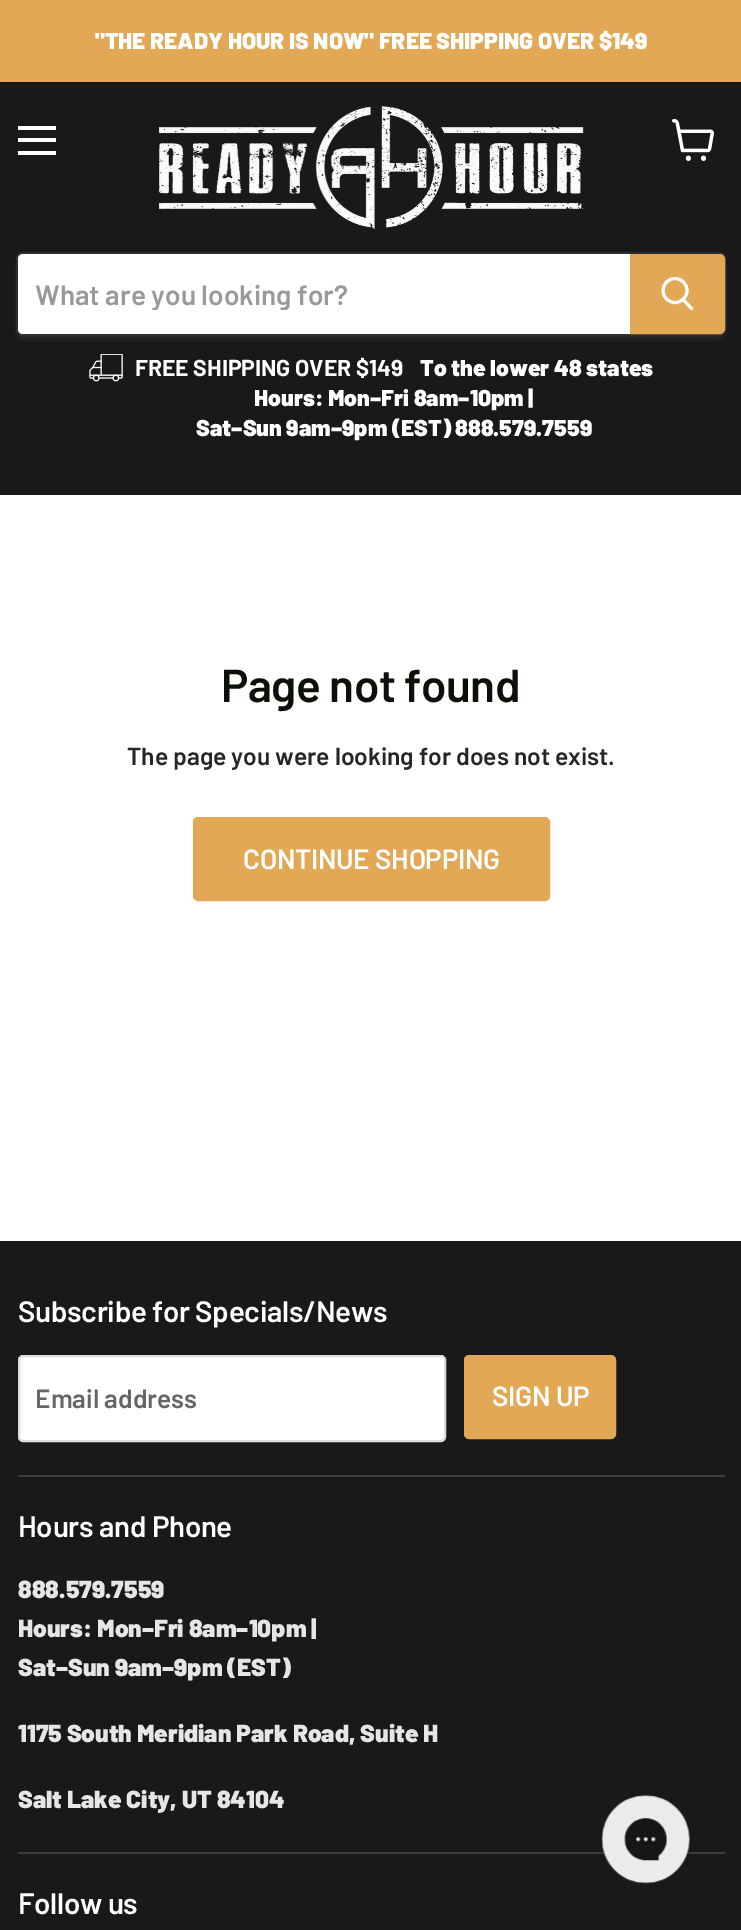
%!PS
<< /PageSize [741 1930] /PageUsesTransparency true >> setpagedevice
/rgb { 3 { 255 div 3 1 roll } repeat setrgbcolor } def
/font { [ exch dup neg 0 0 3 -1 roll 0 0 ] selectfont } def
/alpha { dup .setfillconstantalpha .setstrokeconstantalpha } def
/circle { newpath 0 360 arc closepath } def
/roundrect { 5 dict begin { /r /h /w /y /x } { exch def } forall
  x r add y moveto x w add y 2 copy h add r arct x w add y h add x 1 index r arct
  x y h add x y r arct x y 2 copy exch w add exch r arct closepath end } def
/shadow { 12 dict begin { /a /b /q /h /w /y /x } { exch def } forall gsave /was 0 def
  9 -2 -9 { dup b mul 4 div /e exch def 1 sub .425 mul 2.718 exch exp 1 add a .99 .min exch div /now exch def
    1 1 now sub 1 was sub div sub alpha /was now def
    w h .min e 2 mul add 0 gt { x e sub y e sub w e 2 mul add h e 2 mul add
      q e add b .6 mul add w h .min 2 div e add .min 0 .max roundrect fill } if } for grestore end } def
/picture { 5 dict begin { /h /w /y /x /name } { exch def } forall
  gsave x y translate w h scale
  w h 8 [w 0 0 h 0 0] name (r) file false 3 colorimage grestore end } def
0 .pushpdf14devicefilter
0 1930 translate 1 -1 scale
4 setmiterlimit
255 255 255 rgb
0 0 741 1930 rectfill
[
  [0 0 741 82 227 168 85]
  [0 82 741 413 25 25 25]
  [18 126 38 4 255 255 255]
  [18 138 38 4 255 255 255]
  [18 151 38 4 255 255 255]
] { aload pop rgb rectfill } forall
(img/1.rgb) 672 119 42 42 picture
(img/2.rgb) 159 106 425 124 picture
gsave
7 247 moveto 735 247 lineto 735 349 lineto 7 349 lineto closepath 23 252 moveto 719 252 lineto 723 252 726 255 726 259 curveto 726 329 lineto 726 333 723 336 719 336 curveto 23 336 lineto 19 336 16 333 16 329 curveto 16 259 lineto 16 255 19 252 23 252 curveto closepath eoclip newpath
128 128 128 rgb
16 256 710 84 7 2.5 0.11 shadow
grestore
0.2 alpha
128 128 128 rgb
2 setlinewidth
17 253 708 82 6 roundrect stroke
1 alpha
255 255 255 rgb
23 254 moveto 630 254 lineto 630 334 lineto 23 334 lineto 20 334 18 332 18 329 curveto 18 259 lineto 18 256 20 254 23 254 curveto closepath fill
227 168 85 rgb
631 255 moveto 720 255 lineto 722 255 724 257 724 259 curveto 724 329 lineto 724 331 722 333 720 333 curveto 631 333 lineto closepath gsave fill grestore
stroke
255 255 255 rgb
3 setlinewidth
1 setlinecap
691.5 308.5 moveto 683.5 300 lineto stroke
0 setlinecap
675 290.5 12 circle stroke
(img/3.rgb) 89 354 34 28 picture
227 168 85 rgb
194 818 355 82 4 roundrect gsave fill grestore
2 setlinewidth
stroke
25 25 25 rgb
0 1241 741 689 rectfill
60 60 60 rgb
18 1475 707 2 rectfill
255 255 255 rgb
19 1356 426 85 4 roundrect gsave fill grestore
221 221 221 rgb
stroke
227 168 85 rgb
465 1356 150 82 4 roundrect gsave fill grestore
stroke
60 60 60 rgb
18 1852 707 2 rectfill
(img/4.rgb) 601 1795 89 89 picture
/Barlow-Black 23 font
255 255 255 rgb
95 49 moveto ("THE READY HOUR IS NOW" FREE SHIPPING OVER $149) show
gsave
35 277 578 33 rectclip
/Barlow-SemiBold 28 font
153 153 153 rgb
35 305 moveto (What are you looking for?) show
grestore
/Barlow-Bold 23 font
135 376 moveto (FREE SHIPPING OVER $149) show
/Barlow-Black 23 font
[
  [(To the lower 48 states) 420 376]
  [(Hours: Mon–Fri 8am–10pm |) 254 406]
  [(Sat–Sun 9am–9pm \(EST\)) 196 436]
  [(888.579.7559) 455 436]
] { aload pop moveto show } forall
/Barlow-SemiBold 46 font
11 17 8 rgb
221 702 moveto -0.5 0 (Page not found) ashow
/Barlow-SemiBold 24.6 font
38 38 38 rgb
127 765 moveto (The page you were looking for does not exist.) show
/Barlow-SemiBold 27.75 font
255 255 255 rgb
243 869 moveto -0.25 0 (CONTINUE SHOPPING) ashow
/Barlow-SemiBold 29.5 font
18 1322 moveto -0.3 0 (Subscribe for Specials/News) ashow
/Barlow-SemiBold 26.25 font
102 102 102 rgb
35 1408 moveto (Email address) show
/Barlow-SemiBold 27.75 font
255 255 255 rgb
492 1406 moveto -0.25 0 (SIGN UP) ashow
/Barlow-SemiBold 29.5 font
18 1537 moveto -0.3 0 (Hours and Phone) ashow
/Barlow-Black 24.6 font
230 230 230 rgb
[
  [(888.579.7559) 18 1598]
  [(Hours: Mon–Fri 8am–10pm |) 18 1637]
  [(Sat–Sun 9am–9pm \(EST\)) 18 1676]
  [(1175 South Meridian Park Road, Suite H) 18 1742]
  [(Salt Lake City, UT 84104) 18 1808]
] { aload pop moveto show } forall
/Barlow-SemiBold 29.5 font
255 255 255 rgb
18 1914 moveto -0.3 0 (Follow us) ashow
.poppdf14devicefilter showpage
